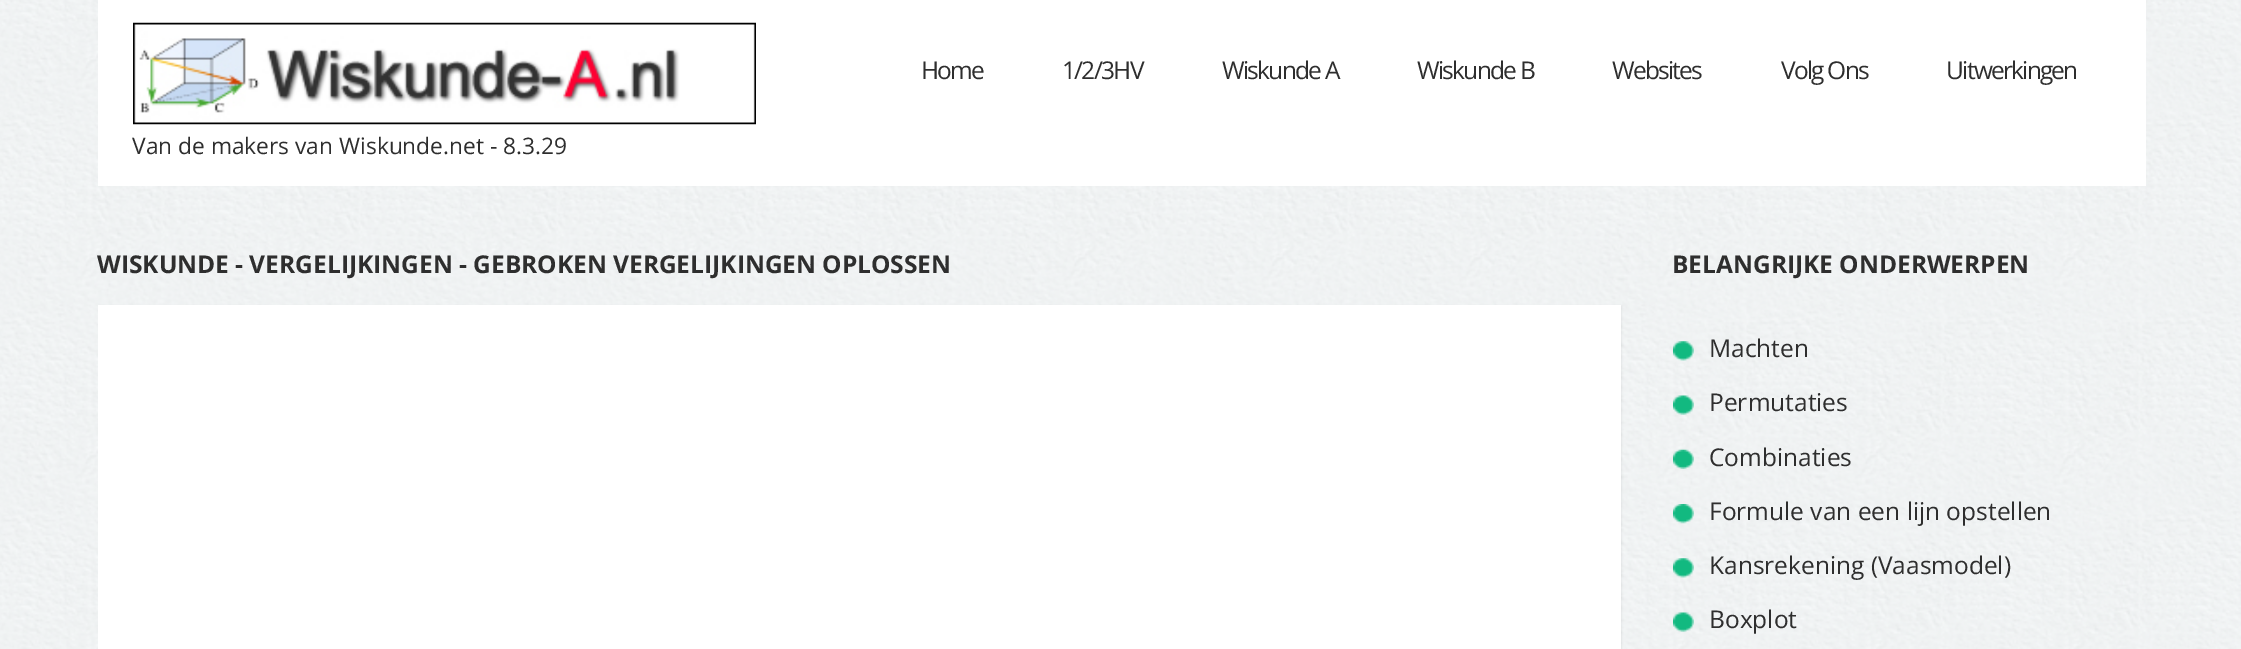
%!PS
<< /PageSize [2241 649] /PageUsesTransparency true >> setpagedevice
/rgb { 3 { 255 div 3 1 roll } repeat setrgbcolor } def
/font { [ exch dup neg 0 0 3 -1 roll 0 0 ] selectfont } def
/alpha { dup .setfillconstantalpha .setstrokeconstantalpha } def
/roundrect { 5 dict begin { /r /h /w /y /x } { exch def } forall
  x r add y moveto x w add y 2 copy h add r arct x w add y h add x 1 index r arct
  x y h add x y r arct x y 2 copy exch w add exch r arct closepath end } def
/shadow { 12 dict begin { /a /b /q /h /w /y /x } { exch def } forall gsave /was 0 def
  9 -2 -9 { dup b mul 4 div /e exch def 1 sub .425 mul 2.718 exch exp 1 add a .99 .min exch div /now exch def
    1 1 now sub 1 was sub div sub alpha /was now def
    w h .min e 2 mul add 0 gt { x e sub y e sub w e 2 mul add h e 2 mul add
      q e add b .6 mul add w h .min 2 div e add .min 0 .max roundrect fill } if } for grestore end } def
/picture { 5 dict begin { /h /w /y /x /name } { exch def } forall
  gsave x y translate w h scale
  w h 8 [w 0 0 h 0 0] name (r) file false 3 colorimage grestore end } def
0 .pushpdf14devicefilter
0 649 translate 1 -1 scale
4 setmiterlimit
255 255 255 rgb
0 0 2241 649 rectfill
(img/1.rgb) 0 0 2241 649 picture
98 0 2048 186 rectfill
(img/2.rgb) 133 22 623 103 picture
0 0 0 rgb
100 306 1522 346 0 1 0.05 shadow
255 255 255 rgb
98 305 1523 344 rectfill
(img/3.rgb) 1673 341 21 20 picture
(img/4.rgb) 1673 395 21 20 picture
(img/5.rgb) 1673 449 21 20 picture
(img/6.rgb) 1673 504 21 20 picture
(img/7.rgb) 1673 558 21 20 picture
(img/8.rgb) 1673 612 21 20 picture
/OpenSans-Regular 24.5 font
46 46 46 rgb
921 79 moveto -1.75 0 (Home) ashow
1062 79 moveto -1.75 0 (1/2/3HV) ashow
1222 79 moveto -1.75 0 (Wiskunde A) ashow
1417 79 moveto -1.75 0 (Wiskunde B) ashow
1612 79 moveto -1.75 0 (Websites) ashow
1781 79 moveto -1.75 0 (Volg Ons) ashow
1946 79 moveto -1.75 0 (Uitwerkingen) ashow
/OpenSans-Regular 22.75 font
132 154 moveto (Van de makers van Wiskunde.net - 8.3.29) show
/OpenSans-Bold 24.5 font
97 273 moveto (WISKUNDE - VERGELIJKINGEN - GEBROKEN VERGELIJKINGEN OPLOSSEN) show
1672 273 moveto (BELANGRIJKE ONDERWERPEN) show
/OpenSans-Regular 24.5 font
[
  [(Machten) 1709 357]
  [(Permutaties) 1709 411]
  [(Combinaties) 1709 466]
  [(Formule van een lijn opstellen) 1709 520]
  [(Kansrekening \(Vaasmodel\)) 1709 574]
  [(Boxplot) 1709 628]
] { aload pop moveto show } forall
.poppdf14devicefilter showpage
